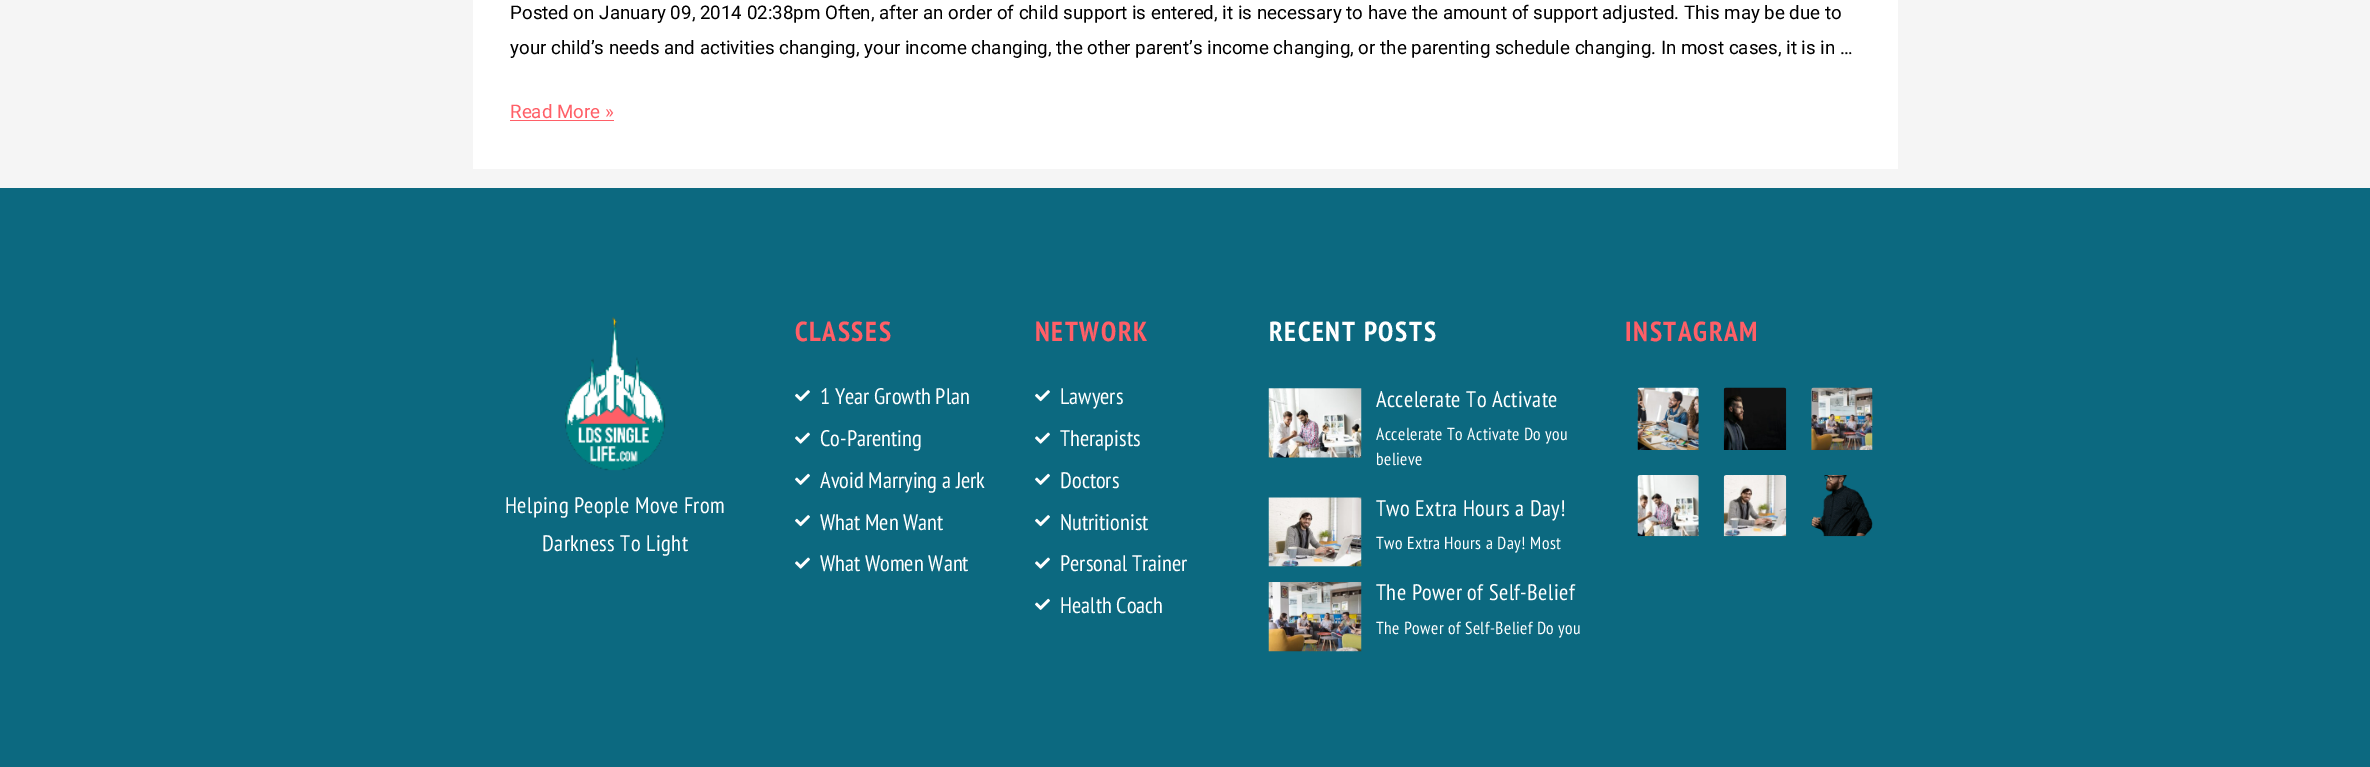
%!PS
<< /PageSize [2370 767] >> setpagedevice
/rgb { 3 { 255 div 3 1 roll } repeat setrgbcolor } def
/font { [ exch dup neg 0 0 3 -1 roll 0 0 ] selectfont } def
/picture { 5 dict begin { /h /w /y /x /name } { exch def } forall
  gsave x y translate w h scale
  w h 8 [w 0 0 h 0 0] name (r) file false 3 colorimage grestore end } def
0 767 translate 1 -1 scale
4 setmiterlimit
245 245 245 rgb
0 0 2370 767 rectfill
[
  [473 0 1425 169 255 255 255]
  [510 120 104 1 255 95 103]
  [0 188 2370 579 12 105 128]
] { aload pop rgb rectfill } forall
(img/1.rgb) 795 390 15 12 picture
(img/2.rgb) 795 432 15 12 picture
(img/3.rgb) 795 473 15 12 picture
(img/1.rgb) 795 515 15 12 picture
(img/2.rgb) 795 557 15 12 picture
(img/1.rgb) 1035 390 15 12 picture
(img/2.rgb) 1035 432 15 12 picture
(img/3.rgb) 1035 473 15 12 picture
(img/1.rgb) 1035 515 15 12 picture
(img/2.rgb) 1035 557 15 12 picture
(img/3.rgb) 1035 598 15 12 picture
(img/4.rgb) 1268 388 94 70 picture
(img/5.rgb) 1268 497 94 70 picture
(img/6.rgb) 1268 582 94 70 picture
(img/7.rgb) 1637 387 62 63 picture
(img/8.rgb) 1723 387 64 63 picture
(img/9.rgb) 1811 387 62 63 picture
(img/10.rgb) 1637 475 62 62 picture
(img/11.rgb) 1723 475 64 62 picture
(img/12.rgb) 1811 475 62 62 picture
(img/13.rgb) 565 317 101 154 picture
/Roboto-Regular 18.75 font
0 0 0 rgb
510 19 moveto (Posted on January 09, 2014 02:38pm Often, after an order of child support is entered, it is necessary to have the amount of support adjusted. This may be due to) show
510 54 moveto (your child’s needs and activities changing, your income changing, the other parent’s income changing, or the parenting schedule changing. In most cases, it is in …) show
255 95 103 rgb
510 118 moveto (Read More ») show
/PTSansNarrow-Bold 27.5 font
795 341 moveto 1.6 0 (CLASSES) ashow
/PTSansNarrow-Regular 22.5 font
255 255 255 rgb
[
  [(1 Year Growth Plan) 820 404]
  [(Co-Parenting) 820 446]
  [(Avoid Marrying a Jerk) 820 488]
  [(What Men Want) 820 530]
  [(What Women Want) 820 571]
] { aload pop moveto show } forall
/PTSansNarrow-Bold 27.5 font
255 95 103 rgb
1035 341 moveto 1.6 0 (NETWORK) ashow
/PTSansNarrow-Regular 22.5 font
255 255 255 rgb
[
  [(Lawyers) 1060 404]
  [(Therapists) 1060 446]
  [(Doctors) 1060 488]
  [(Nutritionist) 1060 530]
  [(Personal Trainer) 1060 571]
  [(Health Coach) 1060 613]
] { aload pop moveto show } forall
/PTSansNarrow-Bold 27.5 font
1269 341 moveto 1.6 0 (RECENT POSTS) ashow
/PTSansNarrow-Regular 22.5 font
1376 407 moveto 0.4 0 (Accelerate To Activate) ashow
/PTSansNarrow-Regular 17.5 font
1376 440 moveto 0.4 0 (Accelerate To Activate Do you) ashow
1376 465 moveto 0.4 0 (believe) ashow
/PTSansNarrow-Regular 22.5 font
1376 516 moveto 0.4 0 (Two Extra Hours a Day!) ashow
/PTSansNarrow-Regular 17.5 font
1376 549 moveto 0.4 0 (Two Extra Hours a Day! Most) ashow
/PTSansNarrow-Regular 22.5 font
1376 600 moveto 0.4 0 (The Power of Self-Belief) ashow
/PTSansNarrow-Regular 17.5 font
1376 634 moveto 0.4 0 (The Power of Self-Belief Do you) ashow
/PTSansNarrow-Bold 27.5 font
255 95 103 rgb
1625 341 moveto 1.6 0 (INSTAGRAM) ashow
/PTSansNarrow-Regular 22.5 font
255 255 255 rgb
505 513 moveto 0.4 0 (Helping People Move From) ashow
542 551 moveto 0.4 0 (Darkness To Light) ashow
showpage
